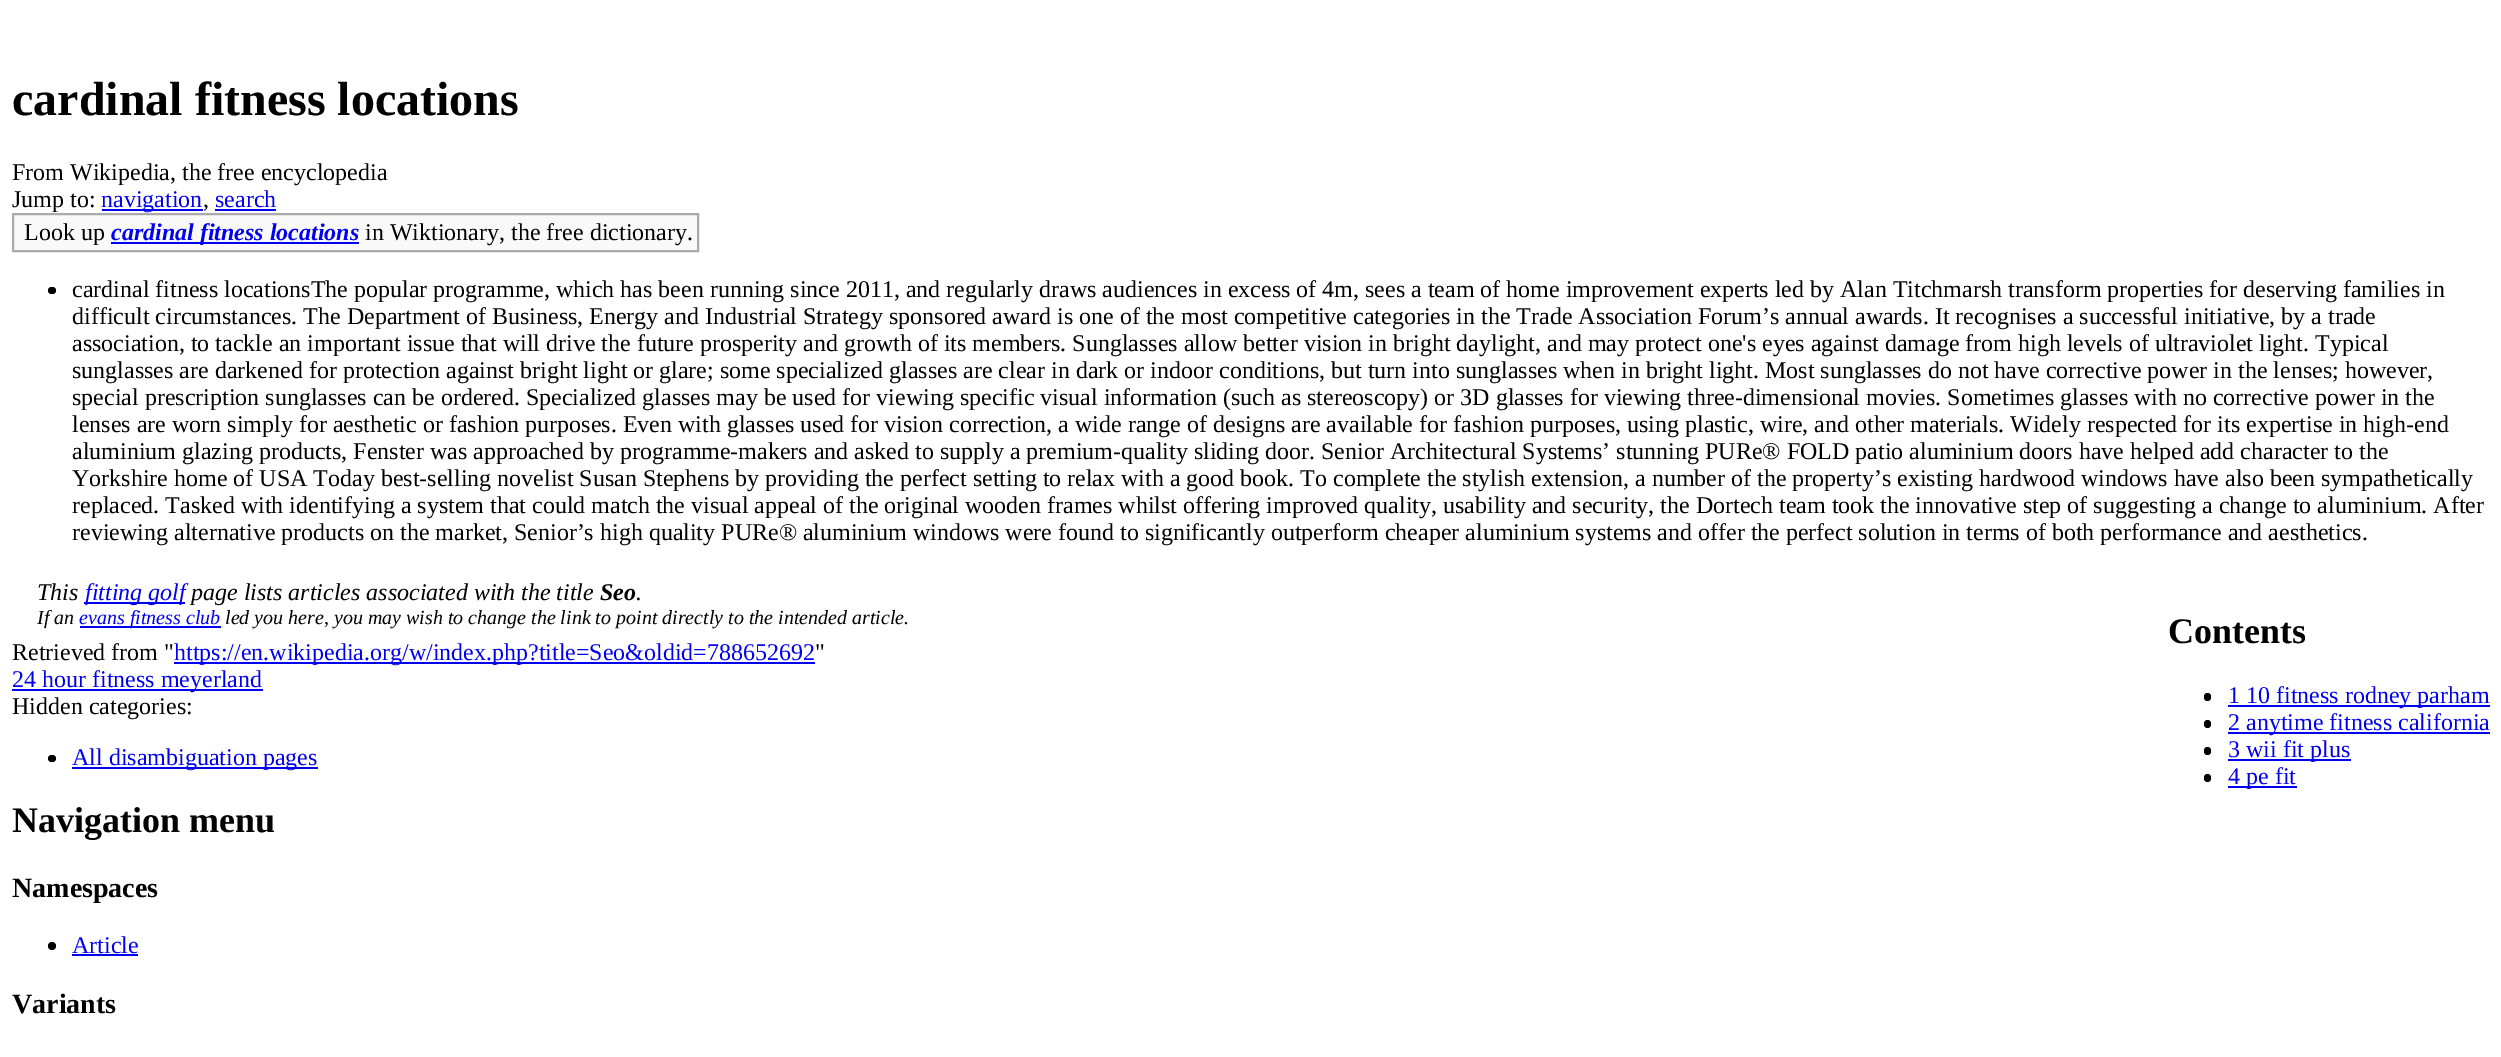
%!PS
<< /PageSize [2501 1057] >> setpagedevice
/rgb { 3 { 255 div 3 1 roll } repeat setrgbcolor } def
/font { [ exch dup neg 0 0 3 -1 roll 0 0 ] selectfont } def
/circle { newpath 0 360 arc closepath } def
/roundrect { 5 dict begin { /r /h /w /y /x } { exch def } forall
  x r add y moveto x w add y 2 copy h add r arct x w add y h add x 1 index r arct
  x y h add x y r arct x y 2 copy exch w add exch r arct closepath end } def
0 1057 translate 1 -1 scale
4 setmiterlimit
255 255 255 rgb
0 0 2501 1057 rectfill
0 0 238 rgb
102 209 101 2 rectfill
215 209 61 2 rectfill
249 249 249 rgb
13 214 moveto 698 214 lineto 698 251 lineto 13 251 lineto closepath gsave fill grestore
170 170 170 rgb
2 setlinewidth
stroke
0 0 238 rgb
111 242 248 2 rectfill
0 0 0 rgb
48 287 8 7 3.5 roundrect fill
0 0 238 rgb
84 602 101 2 rectfill
80 626 141 2 rectfill
0 0 0 rgb
2204 693 7 8 3.5 roundrect fill
0 0 238 rgb
2228 705 262 2 rectfill
0 0 0 rgb
2204 720 7 8 3.5 roundrect fill
0 0 238 rgb
2228 732 262 2 rectfill
0 0 0 rgb
2204 747 7 8 3.5 roundrect fill
0 0 238 rgb
2228 759 123 2 rectfill
0 0 0 rgb
2204 774 7 8 3.5 roundrect fill
[
  [2228 786 69 2 0 0 238]
  [174 662 641 2 0 0 238]
  [12 689 251 2 0 0 238]
] { aload pop rgb rectfill } forall
0 0 0 rgb
48 755 8 7 3.5 roundrect fill
0 0 238 rgb
72 767 246 2 rectfill
0 0 0 rgb
52 946 4 circle fill
0 0 238 rgb
72 954 66 2 rectfill
/LiberationSerif-Bold 48 font
0 0 0 rgb
12 115 moveto (cardinal fitness locations) show
/LiberationSerif-Regular 24 font
12 180 moveto (From Wikipedia, the free encyclopedia) show
12 207 moveto (Jump to:) show
0 0 238 rgb
101 207 moveto (navigation) show
0 0 0 rgb
203 207 moveto (,) show
0 0 238 rgb
215 207 moveto (search) show
0 0 0 rgb
24 240 moveto (Look up) show
/LiberationSerif-BoldItalic 24 font
0 0 238 rgb
111 240 moveto (cardinal fitness locations) show
/LiberationSerif-Regular 24 font
0 0 0 rgb
[
  [(in Wiktionary, the free dictionary.) 365 240]
  [(cardinal fitness locationsThe popular programme, which has been running since 2011, and regularly draws audiences in excess of 4m, sees a team of home improvement experts led by Alan Titchmarsh transform properties for deserving families in) 72 297]
  [(difficult circumstances. The Department of Business, Energy and Industrial Strategy sponsored award is one of the most competitive categories in the Trade Association Forum’s annual awards. It recognises a successful initiative, by a trade) 72 324]
  [(association, to tackle an important issue that will drive the future prosperity and growth of its members. Sunglasses allow better vision in bright daylight, and may protect one's eyes against damage from high levels of ultraviolet light. Typical) 72 351]
  [(sunglasses are darkened for protection against bright light or glare; some specialized glasses are clear in dark or indoor conditions, but turn into sunglasses when in bright light. Most sunglasses do not have corrective power in the lenses; however,) 72 378]
  [(special prescription sunglasses can be ordered. Specialized glasses may be used for viewing specific visual information \(such as stereoscopy\) or 3D glasses for viewing three-dimensional movies. Sometimes glasses with no corrective power in the) 72 405]
  [(lenses are worn simply for aesthetic or fashion purposes. Even with glasses used for vision correction, a wide range of designs are available for fashion purposes, using plastic, wire, and other materials. Widely respected for its expertise in high-end) 72 432]
  [(aluminium glazing products, Fenster was approached by programme-makers and asked to supply a premium-quality sliding door. Senior Architectural Systems’ stunning PURe® FOLD patio aluminium doors have helped add character to the) 72 459]
  [(Yorkshire home of USA Today best-selling novelist Susan Stephens by providing the perfect setting to relax with a good book. To complete the stylish extension, a number of the property’s existing hardwood windows have also been sympathetically) 72 486]
  [(replaced. Tasked with identifying a system that could match the visual appeal of the original wooden frames whilst offering improved quality, usability and security, the Dortech team took the innovative step of suggesting a change to aluminium. After) 72 513]
  [(reviewing alternative products on the market, Senior’s high quality PURe® aluminium windows were found to significantly outperform cheaper aluminium systems and offer the perfect solution in terms of both performance and aesthetics.) 72 540]
] { aload pop moveto show } forall
/LiberationSerif-Italic 24 font
37 600 moveto (This) show
0 0 238 rgb
85 600 moveto (fitting golf) show
0 0 0 rgb
191 600 moveto (page lists articles associated with the title) show
/LiberationSerif-BoldItalic 24 font
600 600 moveto (Seo) show
/LiberationSerif-Italic 24 font
636 600 moveto (.) show
/LiberationSerif-Italic 20 font
37 624 moveto (If an) show
0 0 238 rgb
79 624 moveto (evans fitness club) show
0 0 0 rgb
225 624 moveto (led you here, you may wish to change the link to point directly to the intended article.) show
/LiberationSerif-Bold 36 font
2168 643 moveto (Contents) show
/LiberationSerif-Regular 24 font
0 0 238 rgb
[
  [(1 10 fitness rodney parham) 2228 703]
  [(2 anytime fitness california) 2228 730]
  [(3 wii fit plus) 2228 757]
  [(4 pe fit) 2228 784]
] { aload pop moveto show } forall
0 0 0 rgb
12 660 moveto (Retrieved from ") show
0 0 238 rgb
174 660 moveto (https://en.wikipedia.org/w/index.php?title=Seo&oldid=788652692) show
0 0 0 rgb
815 660 moveto (") show
0 0 238 rgb
12 687 moveto (24 hour fitness meyerland) show
0 0 0 rgb
12 714 moveto (Hidden categories:) show
0 0 238 rgb
72 765 moveto (All disambiguation pages) show
/LiberationSerif-Bold 36 font
0 0 0 rgb
12 832 moveto (Navigation menu) show
/LiberationSerif-Bold 28 font
12 897 moveto (Namespaces) show
/LiberationSerif-Regular 24 font
0 0 238 rgb
72 953 moveto (Article) show
/LiberationSerif-Bold 28 font
0 0 0 rgb
12 1013 moveto (Variants) show
showpage
